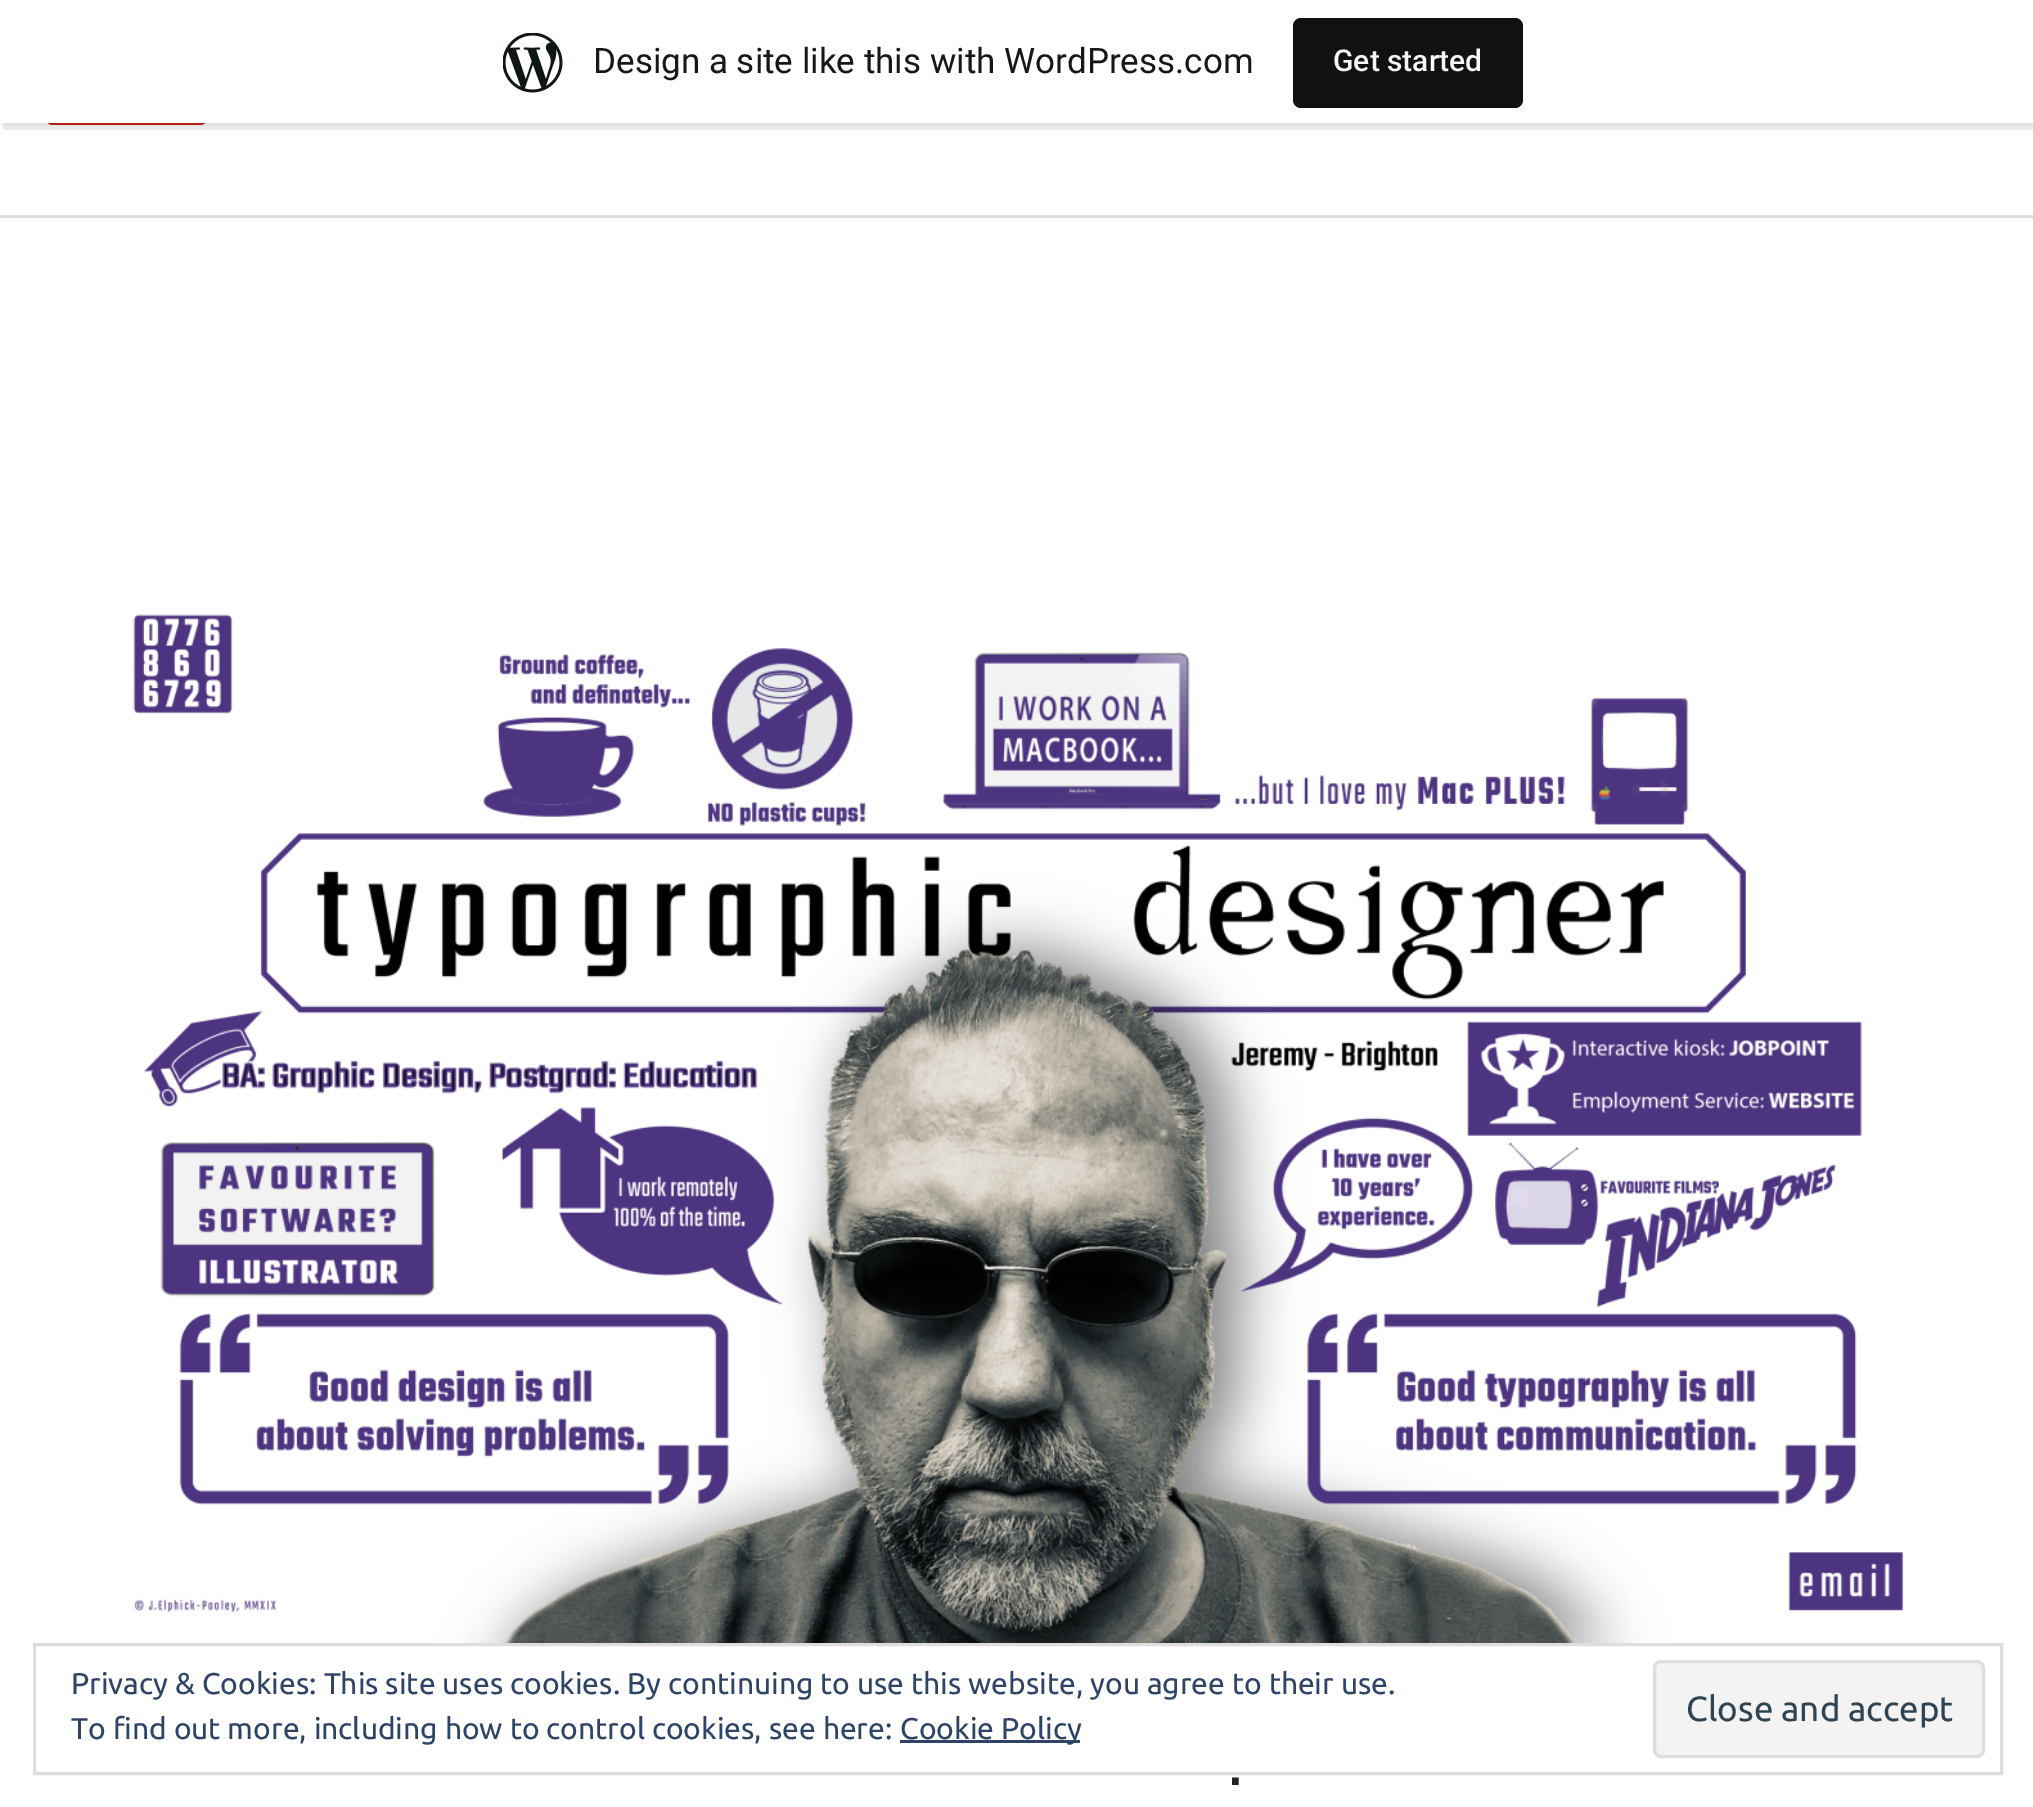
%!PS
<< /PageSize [2033 1807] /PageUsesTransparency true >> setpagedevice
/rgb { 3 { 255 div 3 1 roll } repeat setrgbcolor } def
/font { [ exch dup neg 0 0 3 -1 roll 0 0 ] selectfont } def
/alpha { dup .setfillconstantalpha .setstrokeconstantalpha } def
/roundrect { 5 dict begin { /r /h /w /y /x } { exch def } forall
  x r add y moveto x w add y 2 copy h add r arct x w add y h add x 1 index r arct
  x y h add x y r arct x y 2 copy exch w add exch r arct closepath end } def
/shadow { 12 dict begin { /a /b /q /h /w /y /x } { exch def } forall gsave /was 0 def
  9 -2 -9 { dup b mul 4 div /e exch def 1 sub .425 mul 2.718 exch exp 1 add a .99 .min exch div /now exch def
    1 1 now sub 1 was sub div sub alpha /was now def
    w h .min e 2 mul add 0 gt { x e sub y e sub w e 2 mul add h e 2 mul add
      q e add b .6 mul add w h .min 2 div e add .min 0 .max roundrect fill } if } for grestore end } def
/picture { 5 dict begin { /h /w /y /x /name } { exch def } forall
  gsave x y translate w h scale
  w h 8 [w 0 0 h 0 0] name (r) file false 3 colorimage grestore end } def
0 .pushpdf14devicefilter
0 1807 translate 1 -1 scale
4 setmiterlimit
255 255 255 rgb
0 0 2033 1807 rectfill
202 32 23 rgb
45 50 163 75 8 roundrect fill
0 0 0 rgb
0 3 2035 122 0 2.5 0.05 shadow
0.08 alpha
3 122 moveto 3 130 lineto 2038 130 lineto 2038 8 lineto 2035 8 lineto 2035 122 lineto closepath fill
1 alpha
255 255 255 rgb
0 1 2033 122 rectfill
(img/1.rgb) 503 33 60 60 picture
17 17 17 rgb
1293 18 230 90 8 roundrect fill
222 222 222 rgb
3 setlinewidth
34.5 1644.5 1967 129 rectstroke
46 68 103 rgb
900 1740 180 3 rectfill
243 243 243 rgb
1654.5 1661.5 329 95 6.5 roundrect gsave fill grestore
222 222 222 rgb
stroke
221 221 221 rgb
0 215 2033 3 rectfill
(img/2.rgb) 133 614 1771 1029 picture
/Roboto-Regular 35 font
23 23 23 rgb
593 73 moveto (Design a site like this with WordPress.com) show
/Roboto-Medium 30 font
246 247 247 rgb
1333 71 moveto (Get started) show
/Ubuntu-Regular 30 font
46 68 103 rgb
[
  [(Privacy & Cookies: This site uses cookies. By continuing to use this website, you agree to their use.) 71 1694]
  [(To find out more, including how to control cookies, see here:) 71 1739]
  [(Cookie Policy) 900 1739]
] { aload pop moveto show } forall
/Ubuntu-Regular 35 font
46 68 83 rgb
1686 1721 moveto (Close and accept) show
/Oswald-Regular 62 font
34 34 34 rgb
1229 1785 moveto (.) show
.poppdf14devicefilter showpage
